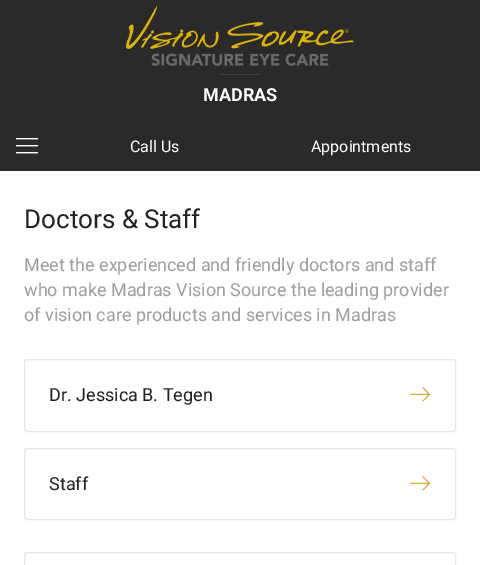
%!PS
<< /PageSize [480 565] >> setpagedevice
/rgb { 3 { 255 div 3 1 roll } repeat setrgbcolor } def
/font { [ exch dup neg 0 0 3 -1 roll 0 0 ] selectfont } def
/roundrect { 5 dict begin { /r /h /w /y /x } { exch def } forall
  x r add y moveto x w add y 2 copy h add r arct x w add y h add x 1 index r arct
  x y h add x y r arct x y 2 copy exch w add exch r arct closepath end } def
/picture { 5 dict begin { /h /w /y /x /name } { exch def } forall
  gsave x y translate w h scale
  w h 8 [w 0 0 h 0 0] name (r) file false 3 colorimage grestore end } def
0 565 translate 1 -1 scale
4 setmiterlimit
255 255 255 rgb
0 0 480 565 rectfill
42 42 42 rgb
0 0 480 171 rectfill
(img/1.rgb) 126 6 228 60 picture
63 63 63 rgb
220 74 40 1 rectfill
(img/2.rgb) 15 138 24 16 picture
230 230 230 rgb
24.5 359.5 431 72 2.5 roundrect stroke
(img/3.rgb) 410 387 20 15 picture
24.5 448.5 431 71 2.5 roundrect stroke
(img/3.rgb) 410 476 20 15 picture
24.5 552.5 431 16 2.5 roundrect stroke
/Roboto-Bold 18 font
255 255 255 rgb
203 101 moveto (MADRAS) show
/Roboto-Regular 16 font
130 152 moveto (Call Us) show
311 152 moveto (Appointments) show
/Roboto-Regular 26 font
33 33 33 rgb
24 228 moveto (Doctors & Staff) show
/Roboto-Regular 18 font
158 158 158 rgb
[
  [(Meet the experienced and friendly doctors and staff) 24 271]
  [(who make Madras Vision Source the leading provider) 24 296]
  [(of vision care products and services in Madras) 24 321]
] { aload pop moveto show } forall
33 33 33 rgb
49 401 moveto (Dr. Jessica B. Tegen) show
49 490 moveto (Staff) show
showpage
